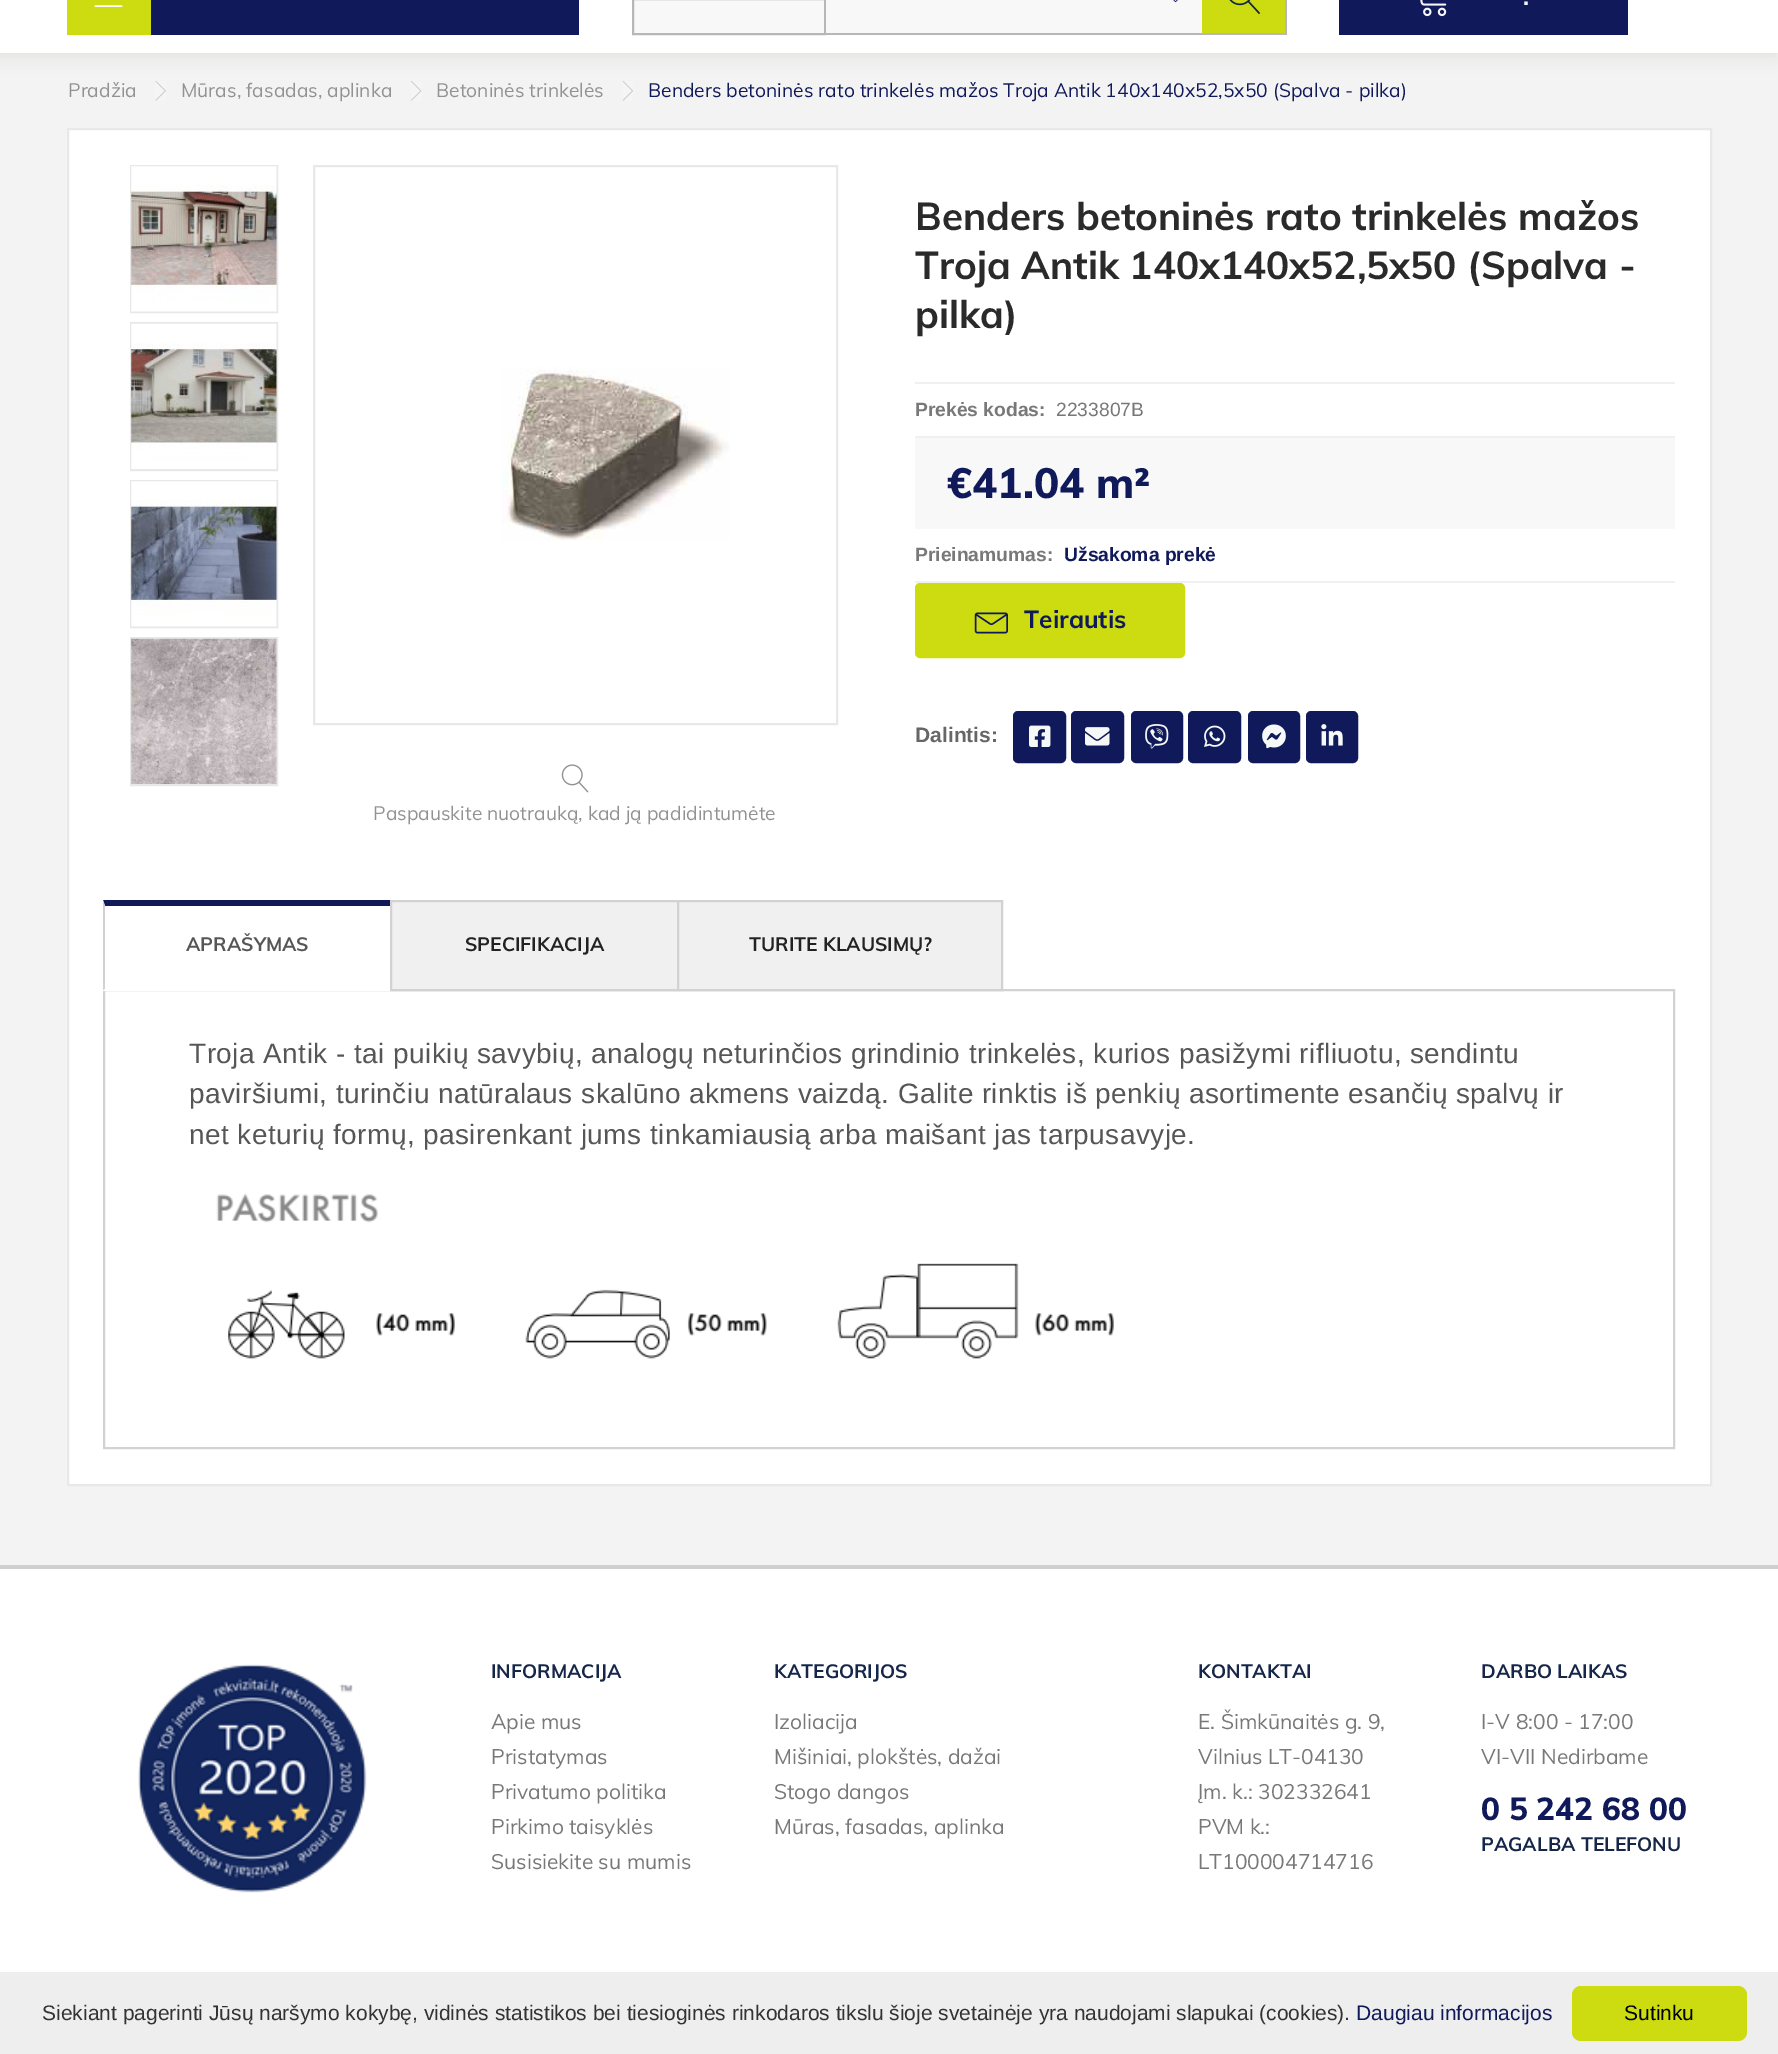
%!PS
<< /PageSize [1778 2054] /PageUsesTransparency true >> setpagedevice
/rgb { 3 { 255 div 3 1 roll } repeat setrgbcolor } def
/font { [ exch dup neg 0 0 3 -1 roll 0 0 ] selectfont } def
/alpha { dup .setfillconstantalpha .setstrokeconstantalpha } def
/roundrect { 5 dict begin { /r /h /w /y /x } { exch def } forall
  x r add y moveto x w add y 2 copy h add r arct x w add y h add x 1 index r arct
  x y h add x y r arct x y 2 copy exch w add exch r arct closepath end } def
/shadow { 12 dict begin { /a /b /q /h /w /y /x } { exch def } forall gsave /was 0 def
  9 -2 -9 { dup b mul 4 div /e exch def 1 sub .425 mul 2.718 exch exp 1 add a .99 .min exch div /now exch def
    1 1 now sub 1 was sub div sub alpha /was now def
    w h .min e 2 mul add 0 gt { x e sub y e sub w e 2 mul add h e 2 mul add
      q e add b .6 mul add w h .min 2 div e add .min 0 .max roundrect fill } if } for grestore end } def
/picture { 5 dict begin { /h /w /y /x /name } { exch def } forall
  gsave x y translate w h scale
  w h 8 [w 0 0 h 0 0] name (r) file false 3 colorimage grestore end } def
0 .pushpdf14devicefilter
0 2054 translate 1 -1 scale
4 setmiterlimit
243 243 243 rgb
0 0 1778 2054 rectfill
44 34 24 rgb
-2 -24 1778 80 0 8 0.09 shadow
[
  [0 0 1778 53 255 255 255]
  [151 0 428 35 16 26 91]
  [67 0 84 35 205 220 17]
] { aload pop rgb rectfill } forall
(img/1.rgb) 94 5 29 2 picture
248 248 248 rgb
633 -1 moveto 825 -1 lineto 825 34 lineto 633 34 lineto closepath gsave fill grestore
183 183 183 rgb
2 setlinewidth
stroke
[
  [1202 0 83 33 205 220 17]
  [1285 0 2 35 183 183 183]
  [826 33 460 2 183 183 183]
] { aload pop rgb rectfill } forall
(img/2.rgb) 1229 0 31 14 picture
248 248 248 rgb
826 0 376 33 rectfill
(img/3.rgb) 1173 0 5 3 picture
16 26 91 rgb
1339 0 289 35 rectfill
(img/4.rgb) 1420 0 27 17 picture
(img/5.rgb) 155 81 11 20 picture
(img/6.rgb) 411 81 11 20 picture
(img/7.rgb) 622 81 11 20 picture
255 255 255 rgb
68 129 moveto 1711 129 lineto 1711 1485 lineto 68 1485 lineto closepath gsave fill grestore
232 232 232 rgb
stroke
[
  [915 382 760 2 240 240 240]
  [915 436 760 2 240 240 240]
  [915 438 760 91 248 248 248]
  [915 581 760 2 240 240 240]
] { aload pop rgb rectfill } forall
205 220 17 rgb
916 584 268 73 4 roundrect gsave fill grestore
stroke
(img/8.rgb) 974 612 34 22 picture
16 26 91 rgb
1014 712 51 50 4 roundrect gsave fill grestore
stroke
(img/9.rgb) 1029 725 22 22 picture
1072 712 51 50 4 roundrect gsave fill grestore
stroke
(img/10.rgb) 1085 727 25 19 picture
1132 712 50 50 4 roundrect gsave fill grestore
stroke
(img/11.rgb) 1145 724 24 25 picture
1189 712 51 50 4 roundrect gsave fill grestore
stroke
(img/12.rgb) 1204 725 22 22 picture
1249 712 50 50 4 roundrect gsave fill grestore
stroke
(img/13.rgb) 1262 724 24 25 picture
1307 712 50 50 4 roundrect gsave fill grestore
stroke
(img/14.rgb) 1321 724 22 22 picture
232 232 232 rgb
131 166 146 146 rectstroke
(img/15.rgb) 131 166 146 146 picture
131 323 146 147 rectstroke
(img/16.rgb) 131 323 146 146 picture
131 481 146 146 rectstroke
(img/17.rgb) 131 481 146 146 picture
131 638 146 147 rectstroke
(img/18.rgb) 131 638 146 146 picture
314 166 523 558 rectstroke
(img/19.rgb) 501 367 229 174 picture
(img/20.rgb) 561 764 28 29 picture
16 26 91 rgb
103 900 moveto 392 900 lineto 390 906 lineto 105 906 lineto closepath fill
210 210 210 rgb
104 990 1570 458 rectstroke
255 255 255 rgb
103 989 289 2 rectfill
210 210 210 rgb
103 990 moveto 103 900 lineto 105 906 lineto 105 989 lineto closepath fill
240 240 240 rgb
391 901 moveto 678 901 lineto 678 990 lineto 391 990 lineto closepath gsave fill grestore
210 210 210 rgb
stroke
240 240 240 rgb
678 901 moveto 1002 901 lineto 1002 990 lineto 678 990 lineto closepath gsave fill grestore
210 210 210 rgb
stroke
(img/21.rgb) 216 1193 898 166 picture
255 255 255 rgb
0 1569 1778 403 rectfill
207 207 207 rgb
0 1565 1778 4 rectfill
(img/22.rgb) 138 1664 229 229 picture
238 238 238 rgb
0 1972 1778 82 rectfill
205 220 17 rgb
1572 1986 175 55 9 roundrect fill
/Muli-Bold 24.5 font
246 247 247 rgb
1523 5 moveto (.) show
/Muli-Regular 19.25 font
146 146 146 rgb
[
  [(Pradžia) 68 97]
  [(Mūras, fasadas, aplinka) 181 97]
  [(Betoninės trinkelės) 436 97]
] { aload pop moveto show } forall
16 26 91 rgb
648 97 moveto (Benders betoninės rato trinkelės mažos Troja Antik 140x140x52,5x50 \(Spalva - pilka\)) show
/Muli-Bold 38.5 font
42 42 42 rgb
[
  [(Benders betoninės rato trinkelės mažos) 915 230]
  [(Troja Antik 140x140x52,5x50 \(Spalva -) 915 279]
  [(pilka\)) 915 328]
] { aload pop moveto show } forall
/LiberationSans-Bold 19.25 font
120 120 120 rgb
915 416 moveto (Prekės kodas:) show
/LiberationSans-Regular 19.25 font
1056 416 moveto (2233807B) show
/Muli-ExtraBold 42 font
16 26 91 rgb
947 498 moveto (€41.04 m²) show
/LiberationSans-Bold 19.25 font
120 120 120 rgb
915 561 moveto (Prieinamumas:) show
16 26 91 rgb
1064 561 moveto (Užsakoma prekė) show
/Muli-Bold 24.5 font
1024 628 moveto (Teirautis) show
/LiberationSans-Bold 21 font
102 102 102 rgb
915 742 moveto (Dalintis:) show
/Muli-Regular 19.25 font
146 146 146 rgb
373 820 moveto (Paspauskite nuotrauką, kad ją padidintumėte) show
/Muli-Bold 19.25 font
86 86 86 rgb
186 951 moveto (APRAŠYMAS) show
36 33 33 rgb
465 951 moveto (SPECIFIKACIJA) show
749 951 moveto (TURITE KLAUSIMŲ?) show
/LiberationSans-Regular 28 font
86 86 86 rgb
189 1063 moveto 0.44 0 (Troja Antik - tai puikių savybių, analogų neturinčios grindinio trinkelės, kurios pasižymi rifliuotu, sendintu) ashow
189 1103 moveto 0.44 0 (paviršiumi, turinčiu natūralaus skalūno akmens vaizdą. Galite rinktis iš penkių asortimente esančių spalvų ir) ashow
189 1144 moveto 0.44 0 (net keturių formų, pasirenkant jums tinkamiausią arba maišant jas tarpusavyje.) ashow
/Muli-Bold 19.25 font
21 38 73 rgb
491 1678 moveto (INFORMACIJA) show
/Muli-Regular 21 font
120 120 120 rgb
[
  [(Apie mus) 491 1729]
  [(Pristatymas) 491 1764]
  [(Privatumo politika) 491 1799]
  [(Pirkimo taisyklės) 491 1834]
  [(Susisiekite su mumis) 491 1869]
] { aload pop moveto show } forall
/Muli-Bold 19.25 font
21 38 73 rgb
774 1678 moveto (KATEGORIJOS) show
/Muli-Regular 21 font
120 120 120 rgb
[
  [(Izoliacija) 774 1729]
  [(Mišiniai, plokštės, dažai) 774 1764]
  [(Stogo dangos) 774 1799]
  [(Mūras, fasadas, aplinka) 774 1834]
] { aload pop moveto show } forall
/Muli-Bold 19.25 font
21 38 73 rgb
1198 1678 moveto (KONTAKTAI) show
/Muli-Regular 21 font
120 120 120 rgb
[
  [(E. Šimkūnaitės g. 9,) 1198 1729]
  [(Vilnius LT-04130) 1198 1764]
  [(Įm. k.: 302332641) 1198 1799]
  [(PVM k.:) 1198 1834]
  [(LT100004714716) 1198 1869]
] { aload pop moveto show } forall
/Muli-Bold 19.25 font
21 38 73 rgb
1481 1678 moveto (DARBO LAIKAS) show
/Muli-Regular 21 font
120 120 120 rgb
1481 1729 moveto (I-V 8:00 - 17:00) show
1481 1764 moveto (VI-VII Nedirbame) show
/Muli-ExtraBold 31.5 font
16 26 91 rgb
1481 1820 moveto (0 5 242 68 00) show
/Muli-Bold 19.25 font
21 38 73 rgb
1481 1851 moveto (PAGALBA TELEFONU) show
/LiberationSans-Regular 21 font
51 51 51 rgb
42 2020 moveto (Siekiant pagerinti Jūsų naršymo kokybę, vidinės statistikos bei tiesioginės rinkodaros tikslu šioje svetainėje yra naudojami slapukai \(cookies\).) show
16 26 91 rgb
1356 2020 moveto (Daugiau informacijos) show
0 0 0 rgb
1624 2020 moveto (Sutinku) show
.poppdf14devicefilter showpage
